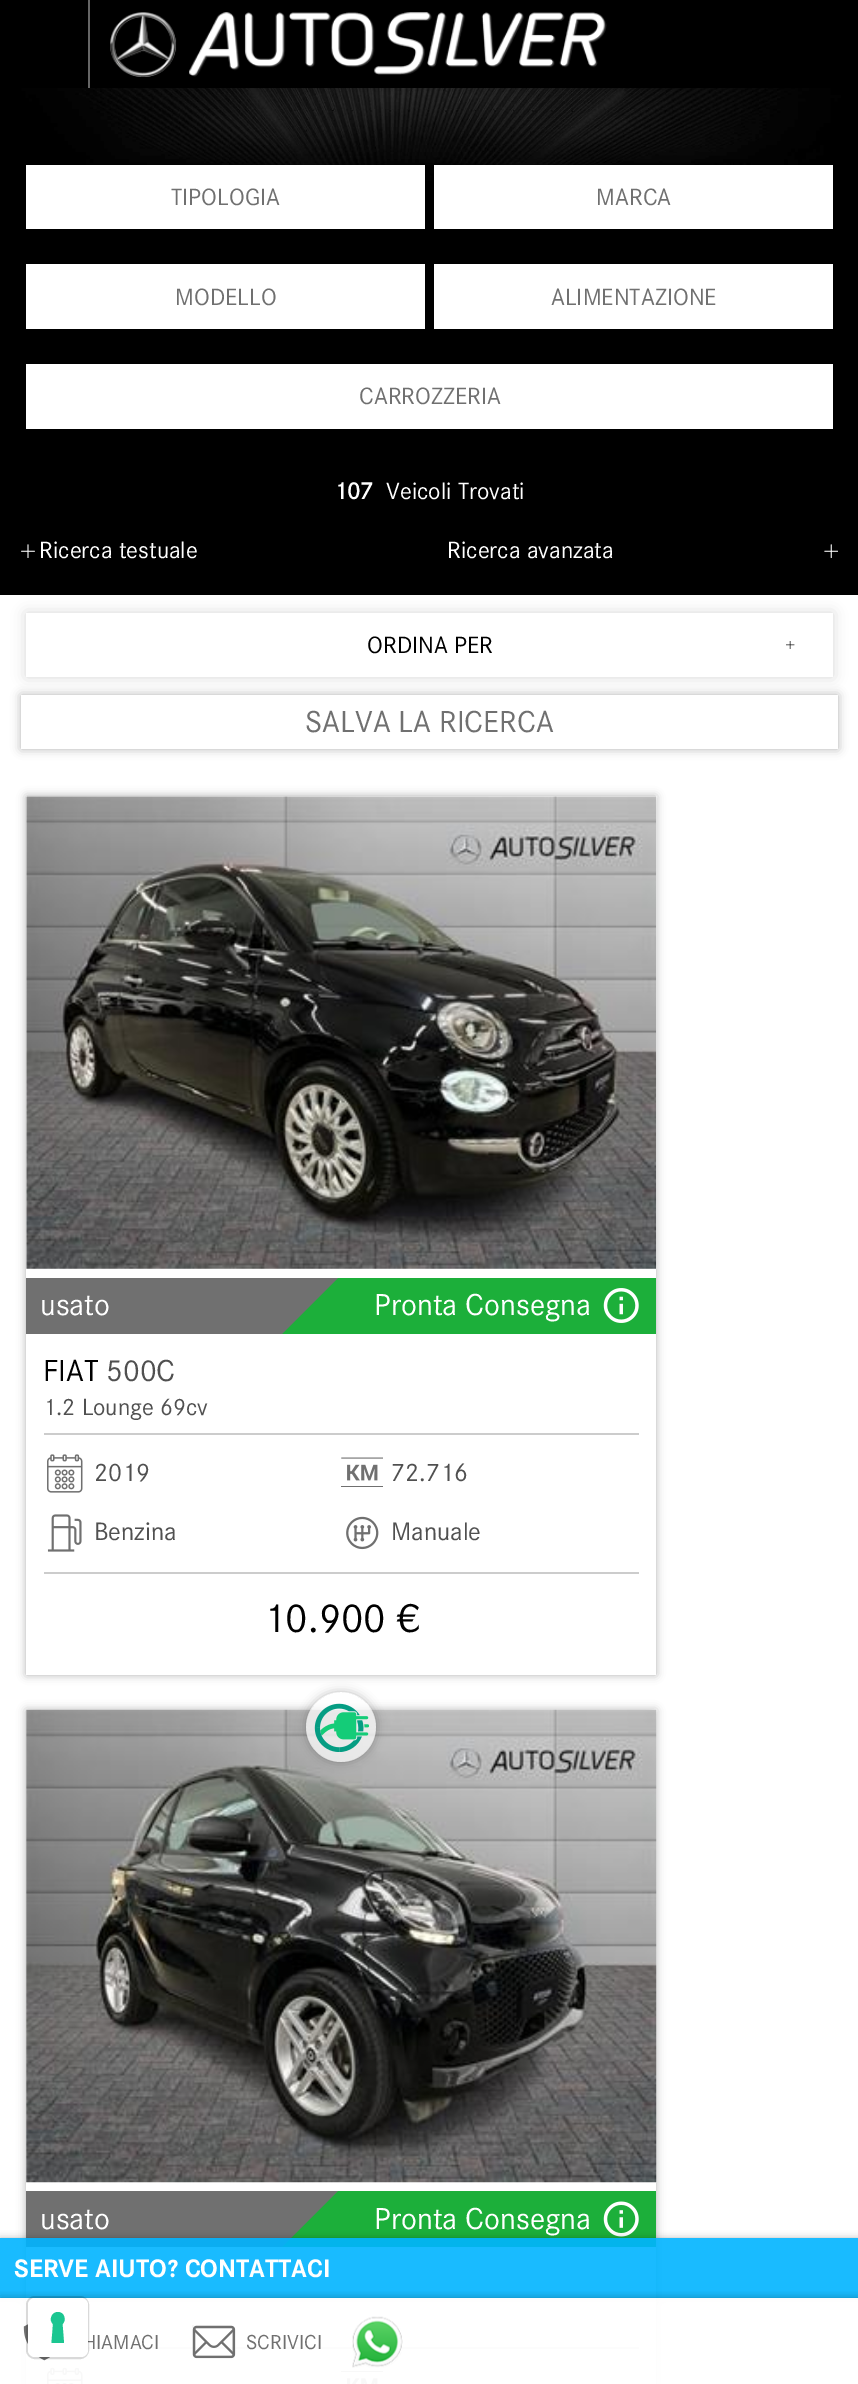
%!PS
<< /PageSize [858 2384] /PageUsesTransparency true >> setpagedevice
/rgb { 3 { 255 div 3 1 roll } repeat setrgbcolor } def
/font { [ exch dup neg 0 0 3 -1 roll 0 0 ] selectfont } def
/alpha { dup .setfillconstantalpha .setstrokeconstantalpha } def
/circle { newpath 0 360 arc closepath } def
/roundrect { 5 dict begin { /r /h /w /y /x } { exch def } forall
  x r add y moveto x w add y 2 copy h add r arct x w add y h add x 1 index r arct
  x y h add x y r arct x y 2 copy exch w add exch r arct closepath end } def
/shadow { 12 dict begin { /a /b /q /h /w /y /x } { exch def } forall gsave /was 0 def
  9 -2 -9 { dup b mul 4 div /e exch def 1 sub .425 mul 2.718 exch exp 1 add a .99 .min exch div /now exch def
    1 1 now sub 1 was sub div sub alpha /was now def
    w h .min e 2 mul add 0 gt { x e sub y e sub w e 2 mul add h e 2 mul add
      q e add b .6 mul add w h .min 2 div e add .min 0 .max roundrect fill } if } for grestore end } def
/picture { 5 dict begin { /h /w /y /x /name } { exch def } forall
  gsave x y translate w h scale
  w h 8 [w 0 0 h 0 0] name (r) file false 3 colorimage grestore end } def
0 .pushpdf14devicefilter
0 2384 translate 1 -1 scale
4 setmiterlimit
255 255 255 rgb
0 0 858 2384 rectfill
(img/2.rgb) 0 88 858 93 picture
0 0 0 rgb
0 0 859 88 0 5 0.2 shadow
0 0 858 88 rectfill
102 102 102 rgb
88 0 2 88 rectfill
(img/1.rgb) 110 12 497 65 picture
[
  [0 181 858 414 0 0 0]
  [26 165 399 64 255 255 255]
  [434 165 399 64 255 255 255]
  [26 264 399 65 255 255 255]
  [434 264 399 65 255 255 255]
  [26 364 807 65 255 255 255]
] { aload pop rgb rectfill } forall
(img/3.rgb) 21 544 14 14 picture
(img/4.rgb) 824 544 14 14 picture
0 0 0 rgb
26 613 807 64 0 7 0.15 shadow
255 255 255 rgb
26 613 807 64 rectfill
(img/5.rgb) 786 641 9 8 picture
gsave
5 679 moveto 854 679 lineto 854 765 lineto 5 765 lineto closepath 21 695 moveto 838 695 lineto 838 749 lineto 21 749 lineto closepath eoclip newpath
0 0 0 rgb
21 695 817 54 0 5 0.3 shadow
grestore
0 0 0 rgb
26 796 630 879 0 4.5 0.3 shadow
255 255 255 rgb
26 796 630 879 rectfill
(img/6.rgb) 26 796 631 473 picture
112 112 112 rgb
26 1278 256 56 rectfill
28 175 58 rgb
282 1278 374 56 rectfill
112 112 112 rgb
282 1334 moveto 282 1278 lineto 338 1278 lineto closepath fill
(img/7.rgb) 603 1288 36 35 picture
204 204 204 rgb
44 1433 595 2 rectfill
(img/8.rgb) 47 1454 36 39 picture
(img/9.rgb) 341 1457 42 30 picture
(img/10.rgb) 47 1514 35 38 picture
(img/11.rgb) 346 1516 33 34 picture
44 1572 595 2 rectfill
0 0 0 rgb
26 1710 630 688 0 4.5 0.3 shadow
255 255 255 rgb
26 1710 630 674 rectfill
(img/13.rgb) 26 1709 631 474 picture
gsave
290 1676 moveto 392 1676 lineto 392 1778 lineto 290 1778 lineto closepath 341 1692 moveto 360.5 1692 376 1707.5 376 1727 curveto 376 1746.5 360.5 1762 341 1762 curveto 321.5 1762 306 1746.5 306 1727 curveto 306 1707.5 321.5 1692 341 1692 curveto closepath eoclip newpath
0 0 0 rgb
306 1692 70 70 35 5 0.25 shadow
grestore
0.7 alpha
341 1727 35 circle fill
1 alpha
(img/12.rgb) 314 1703 55 49 picture
112 112 112 rgb
26 2191 256 56 rectfill
28 175 58 rgb
282 2191 374 56 rectfill
112 112 112 rgb
282 2247 moveto 282 2191 lineto 338 2191 lineto closepath fill
(img/14.rgb) 603 2201 36 36 picture
204 204 204 rgb
88 2347 551 2 rectfill
(img/15.rgb) 47 2367 36 17 picture
(img/16.rgb) 341 2371 42 13 picture
gsave
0 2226 moveto 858 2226 lineto 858 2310 lineto 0 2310 lineto closepath 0 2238 moveto 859 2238 lineto 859 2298 lineto 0 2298 lineto closepath eoclip newpath
0 0 0 rgb
0 2238 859 60 0 3.5 0.25 shadow
grestore
0.9 alpha
0 180 255 rgb
0 2238 858 60 rectfill
gsave
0 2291 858 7 rectclip
1 alpha
0 0 0 rgb
0 2298 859 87 0 4.5 0.3 shadow
grestore
0.95 alpha
255 255 255 rgb
0 2298 858 86 rectfill
1 alpha
(img/17.rgb) 23 2324 27 37 picture
(img/18.rgb) 192 2325 44 34 picture
(img/19.rgb) 352 2316 51 52 picture
/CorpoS-Regular 24.5 font
112 112 112 rgb
[
  [(TIPOLOGIA) 171 205]
  [(MARCA) 596 205]
  [(MODELLO) 175 305]
  [(ALIMENTAZIONE) 551 305]
  [(CARROZZERIA) 359 404]
] { aload pop moveto show } forall
/CorpoS-Bold 24.5 font
255 255 255 rgb
334 499 moveto (107) show
/CorpoS-Regular 24.5 font
[
  [(Veicoli Trovati) 386 499]
  [(Ricerca testuale) 39 558]
  [(Ricerca avanzata) 447 558]
] { aload pop moveto show } forall
0 0 0 rgb
367 653 moveto (ORDINA PER) show
/CorpoS-Regular 31.5 font
112 112 112 rgb
305 732 moveto (SALVA LA RICERCA) show
255 255 255 rgb
40 1315 moveto (usato) show
374 1315 moveto (Pronta Consegna) show
0 0 0 rgb
43 1381 moveto (FIAT) show
80 80 80 rgb
106 1381 moveto (500C) show
/CorpoS-Regular 24.5 font
43 1415 moveto (1.2 Lounge 69cv) show
/CorpoS-Regular 26.25 font
[
  [(2019) 94 1481]
  [(72.716) 391 1481]
  [(Benzina) 94 1540]
  [(Manuale) 391 1540]
] { aload pop moveto show } forall
/CorpoS-Regular 42 font
0 0 0 rgb
263 1632 moveto (10.900 €) show
/CorpoS-Regular 31.5 font
255 255 255 rgb
40 2229 moveto (usato) show
374 2229 moveto (Pronta Consegna) show
/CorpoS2-Bold 26.25 font
14 2277 moveto (SERVE AIUTO? CONTATTACI) show
/CorpoS-Regular 21 font
112 112 112 rgb
83 2349 moveto (HIAMACI) show
0.15 alpha
0 0 0 rgb
2 setlinewidth
27 2297 61 61 8 roundrect stroke
1 alpha
255 255 255 rgb
28 2298 60 59 7 roundrect fill
28 198 145 rgb
58 2312 moveto 64 2312 67 2320 62.5 2324 curveto 64 2343 lineto 51.5 2343 lineto 53 2324 lineto 48.5 2320 51.5 2312 58 2312 curveto closepath eofill
112 112 112 rgb
246 2349 moveto (SCRIVICI) show
.poppdf14devicefilter showpage
